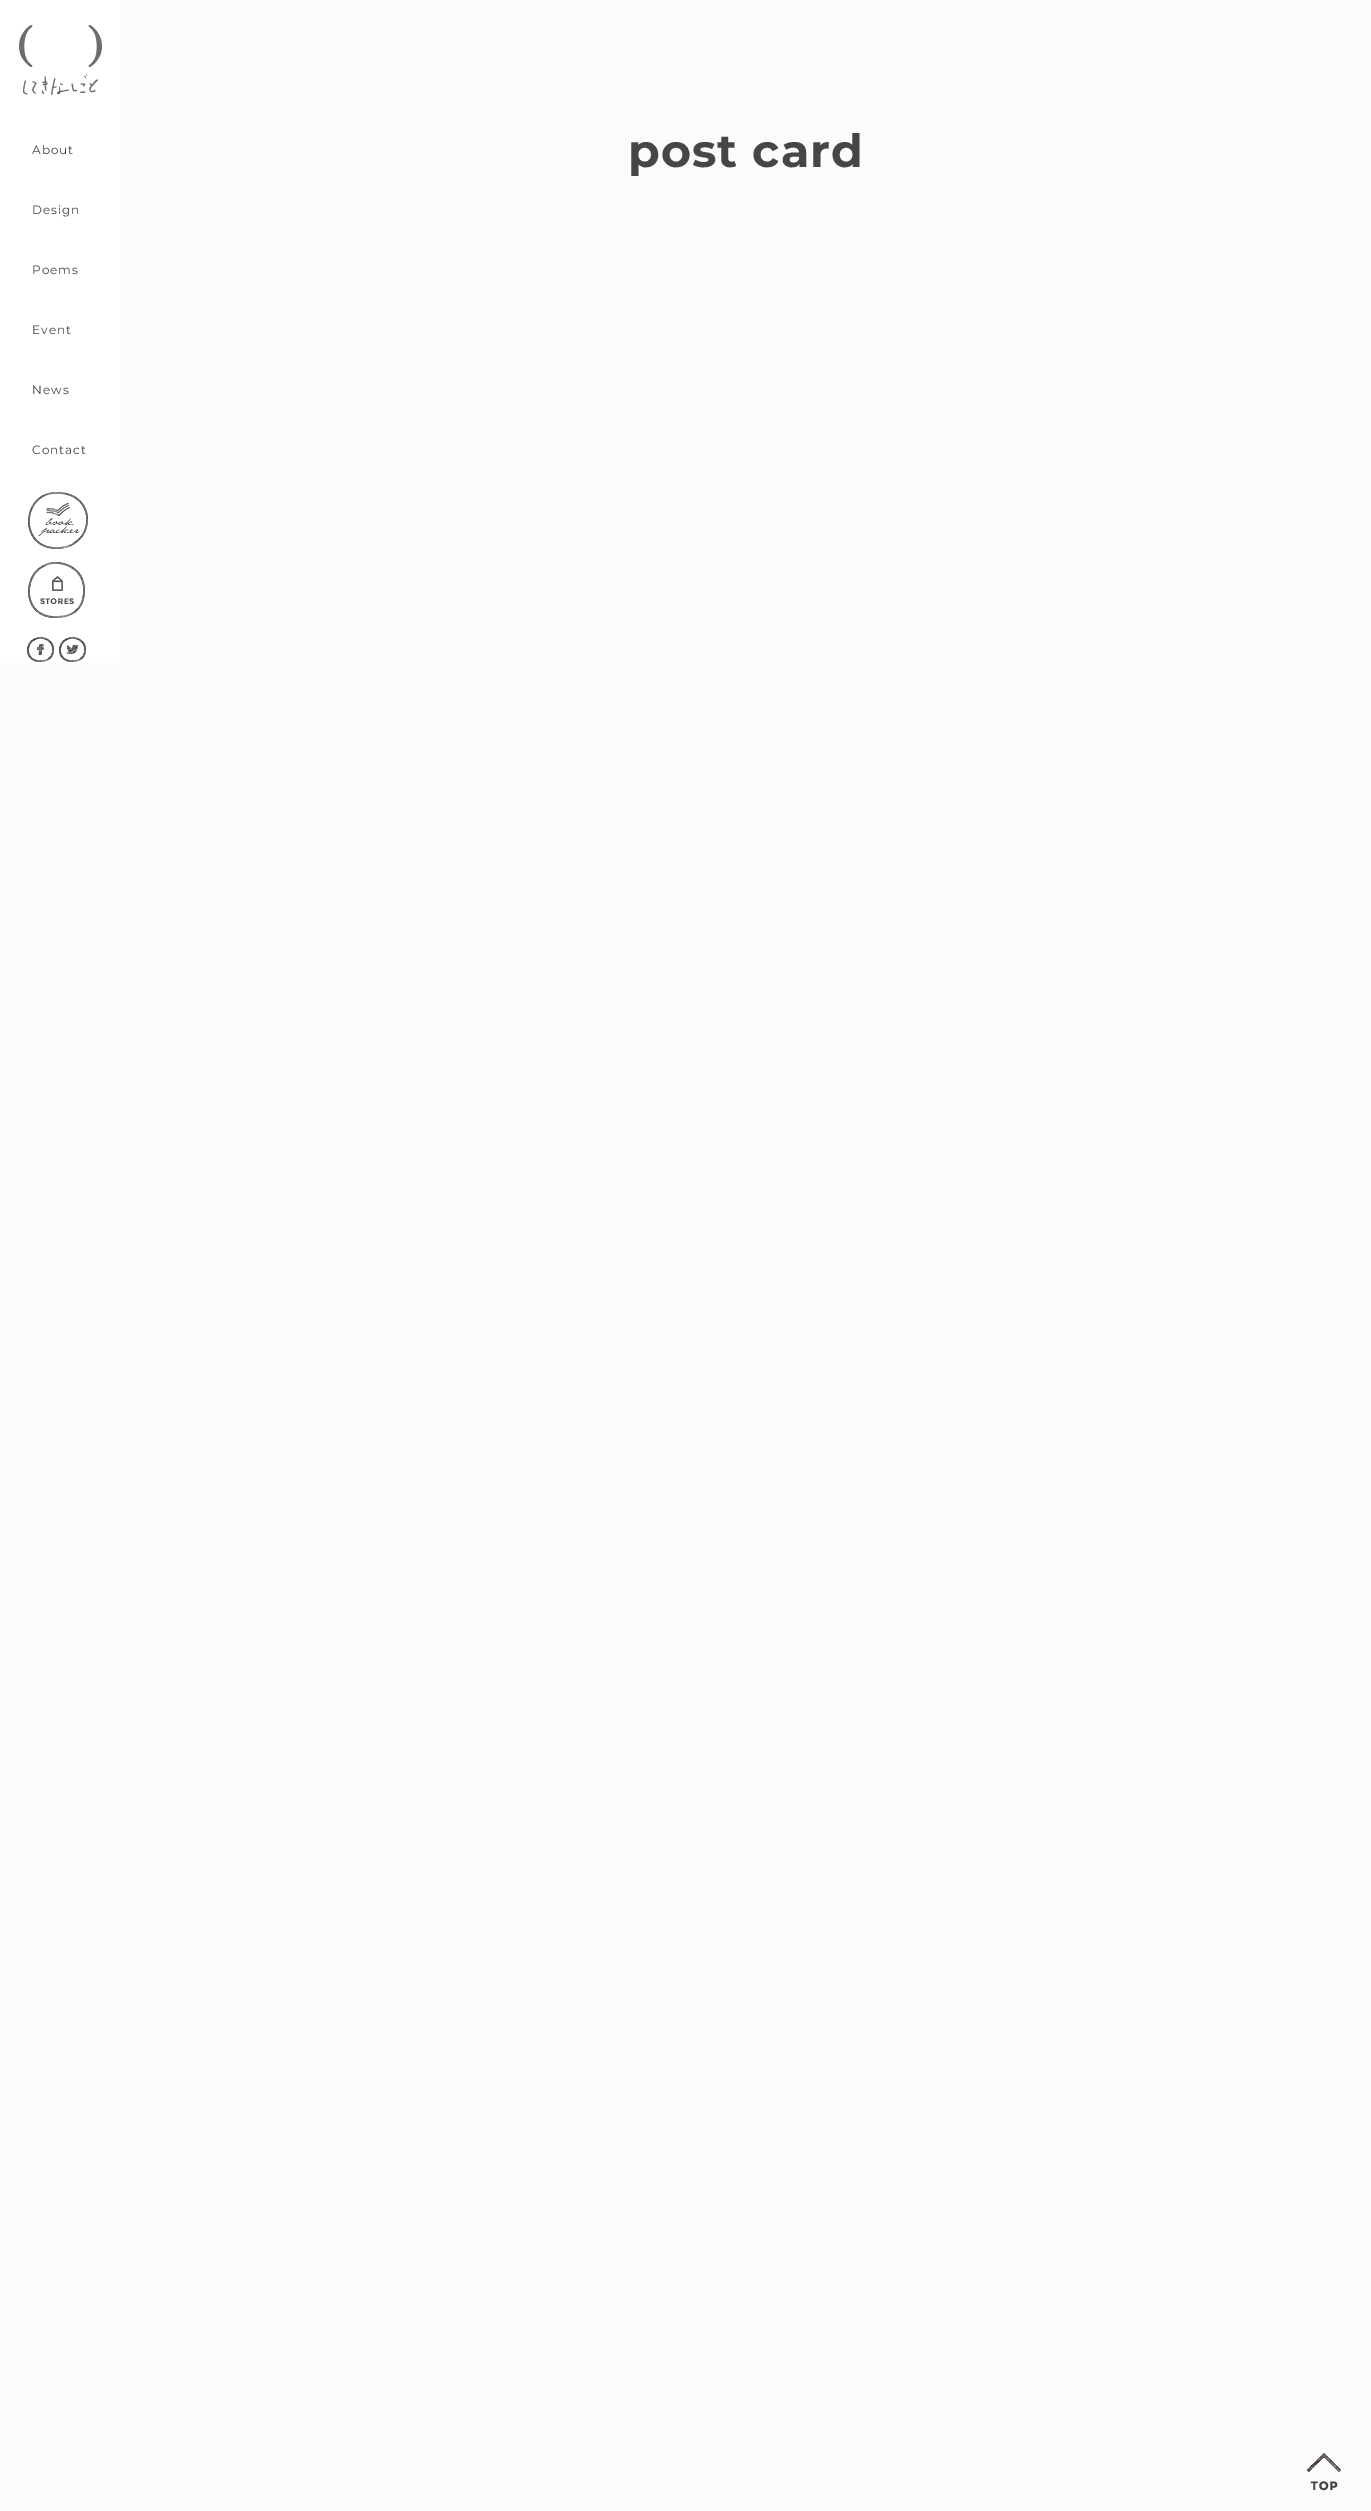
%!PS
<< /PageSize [1371 2511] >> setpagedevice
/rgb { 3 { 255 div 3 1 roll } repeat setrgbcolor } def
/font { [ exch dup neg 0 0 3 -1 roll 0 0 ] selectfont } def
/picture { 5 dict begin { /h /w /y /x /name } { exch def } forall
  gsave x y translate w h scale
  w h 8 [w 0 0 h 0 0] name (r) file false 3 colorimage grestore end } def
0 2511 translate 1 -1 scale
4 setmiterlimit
250 251 250 rgb
0 0 1371 2511 rectfill
255 255 255 rgb
0 0 120 663 rectfill
(img/1.rgb) 19 25 83 70 picture
(img/2.rgb) 28 492 60 57 picture
(img/3.rgb) 28 562 57 56 picture
(img/4.rgb) 27 637 27 25 picture
(img/5.rgb) 59 637 27 25 picture
(img/6.rgb) 1307 2453 34 38 picture
/Montserrat-Regular 12 font
70 70 70 rgb
32 154 moveto 1 0 (About) ashow
32 214 moveto 1 0 (Design) ashow
32 274 moveto 1 0 (Poems) ashow
32 334 moveto 1 0 (Event) ashow
32 394 moveto 1 0 (News) ashow
32 454 moveto 1 0 (Contact) ashow
/Montserrat-Bold 46 font
628 167 moveto 1 0 (post card) ashow
showpage
